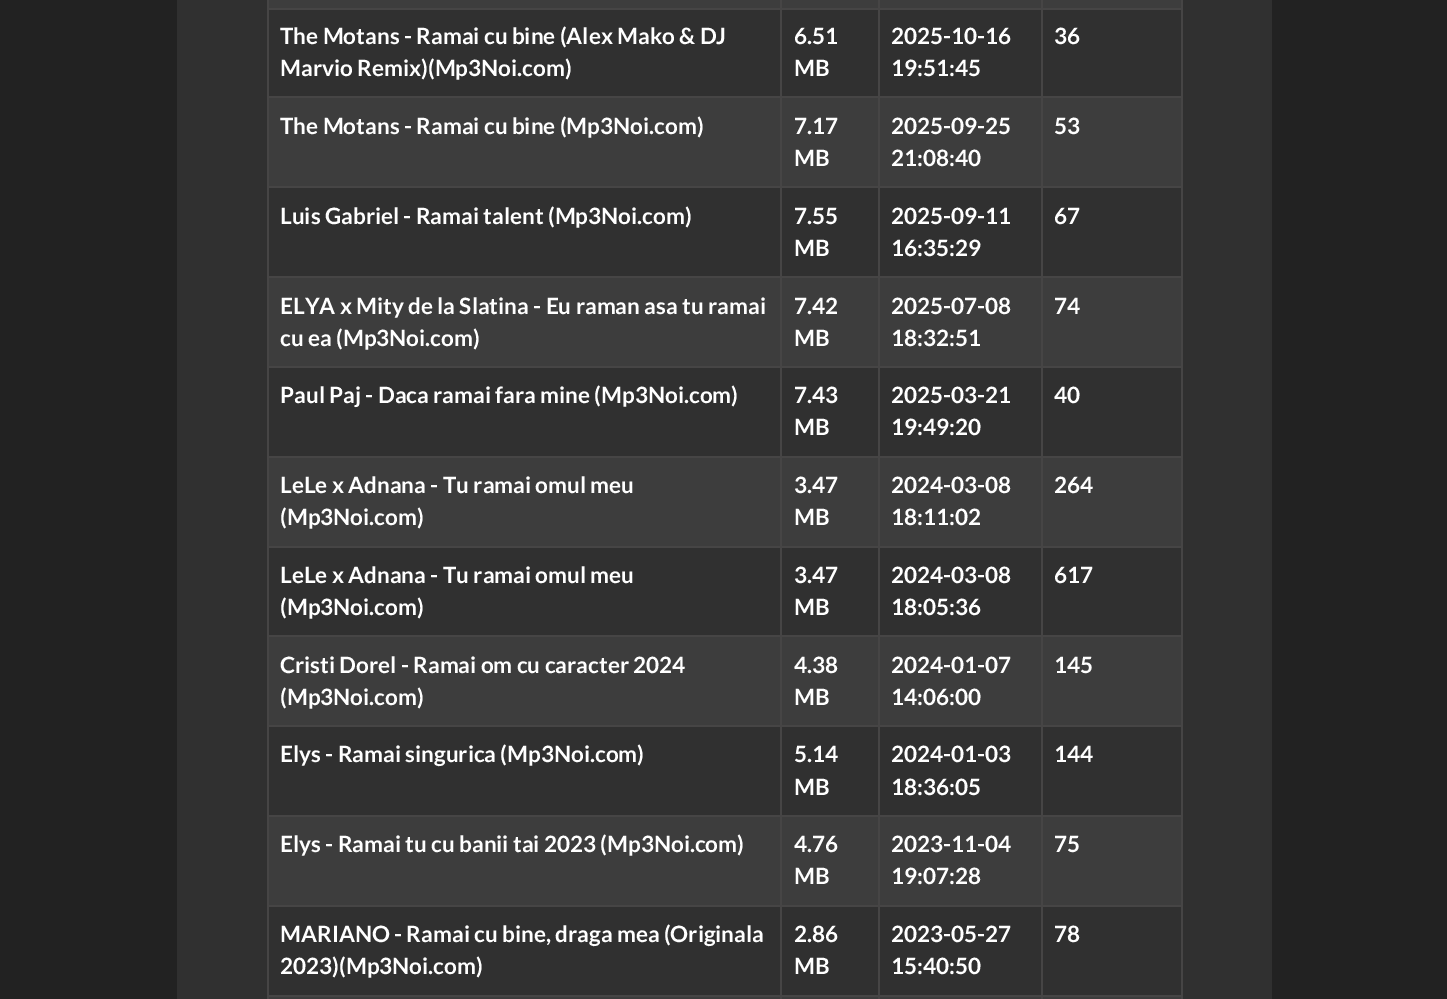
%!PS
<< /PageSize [1447 999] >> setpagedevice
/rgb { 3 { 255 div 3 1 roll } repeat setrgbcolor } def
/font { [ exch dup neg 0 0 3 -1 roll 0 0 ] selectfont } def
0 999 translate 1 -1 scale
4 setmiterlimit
34 34 34 rgb
0 0 1447 999 rectfill
[
  [177 0 1095 999 48 48 48]
  [1181 0 2 999 70 69 69]
  [267 0 914 8 61 61 61]
  [267 997 914 2 61 61 61]
  [267 0 2 999 70 69 69]
  [1041 8 141 2 70 69 69]
  [1041 96 141 2 70 69 69]
  [269 98 912 88 61 61 61]
  [1041 186 141 2 70 69 69]
  [1041 276 141 2 70 69 69]
  [269 278 912 88 61 61 61]
  [1041 366 141 2 70 69 69]
  [1041 456 141 2 70 69 69]
  [269 458 912 88 61 61 61]
  [1041 546 141 2 70 69 69]
  [1041 635 141 2 70 69 69]
  [269 637 912 88 61 61 61]
  [1041 725 141 2 70 69 69]
  [1041 815 141 2 70 69 69]
  [269 817 912 88 61 61 61]
  [1041 905 141 2 70 69 69]
  [1041 995 141 2 70 69 69]
  [1041 995 2 4 70 69 69]
  [878 995 165 2 70 69 69]
  [1041 905 2 91 70 69 69]
  [878 905 165 2 70 69 69]
  [1041 815 2 91 70 69 69]
  [878 815 165 2 70 69 69]
  [1041 725 2 91 70 69 69]
  [878 725 165 2 70 69 69]
  [1041 635 2 91 70 69 69]
  [878 635 165 2 70 69 69]
  [1041 546 2 90 70 69 69]
  [878 546 165 2 70 69 69]
  [1041 456 2 92 70 69 69]
  [878 456 165 2 70 69 69]
  [1041 366 2 92 70 69 69]
  [878 366 165 2 70 69 69]
  [1041 276 2 92 70 69 69]
  [878 276 165 2 70 69 69]
  [1041 186 2 92 70 69 69]
  [878 186 165 2 70 69 69]
  [1041 96 2 92 70 69 69]
  [878 96 165 2 70 69 69]
  [1041 8 2 90 70 69 69]
  [878 8 165 2 70 69 69]
  [878 995 2 4 70 69 69]
  [780 995 99 2 70 69 69]
  [878 905 2 91 70 69 69]
  [780 905 99 2 70 69 69]
  [878 815 2 91 70 69 69]
  [780 815 99 2 70 69 69]
  [878 725 2 91 70 69 69]
  [780 725 99 2 70 69 69]
  [878 635 2 91 70 69 69]
  [780 635 99 2 70 69 69]
  [878 546 2 90 70 69 69]
  [780 546 99 2 70 69 69]
  [878 456 2 92 70 69 69]
  [780 456 99 2 70 69 69]
  [878 366 2 92 70 69 69]
  [780 366 99 2 70 69 69]
  [878 276 2 92 70 69 69]
  [780 276 99 2 70 69 69]
  [878 186 2 92 70 69 69]
  [780 186 99 2 70 69 69]
  [878 96 2 92 70 69 69]
  [780 96 99 2 70 69 69]
  [878 8 2 90 70 69 69]
  [780 8 99 2 70 69 69]
  [780 995 2 4 70 69 69]
  [267 995 515 2 70 69 69]
  [780 905 2 91 70 69 69]
  [267 905 515 2 70 69 69]
  [780 815 2 91 70 69 69]
  [267 815 515 2 70 69 69]
  [780 725 2 91 70 69 69]
  [267 725 515 2 70 69 69]
  [780 635 2 91 70 69 69]
  [267 635 515 2 70 69 69]
  [780 546 2 90 70 69 69]
  [267 546 515 2 70 69 69]
  [780 456 2 92 70 69 69]
  [267 456 515 2 70 69 69]
  [780 366 2 92 70 69 69]
  [267 366 515 2 70 69 69]
  [780 276 2 92 70 69 69]
  [267 276 515 2 70 69 69]
  [780 186 2 92 70 69 69]
  [267 186 515 2 70 69 69]
  [780 96 2 92 70 69 69]
  [267 96 515 2 70 69 69]
  [780 8 2 90 70 69 69]
  [267 8 515 2 70 69 69]
  [780 0 2 9 70 69 69]
  [878 0 2 9 70 69 69]
  [1041 0 2 9 70 69 69]
] { aload pop rgb rectfill } forall
/Lato-Bold 22.5 font
255 255 255 rgb
[
  [(The Motans - Ramai cu bine \(Alex Mako & DJ) 280 44]
  [(Marvio Remix\)\(Mp3Noi.com\)) 280 76]
  [(6.51) 794 44]
  [(MB) 794 76]
  [(2025-10-16) 891 44]
  [(19:51:45) 891 76]
  [(36) 1054 44]
  [(The Motans - Ramai cu bine \(Mp3Noi.com\)) 280 134]
  [(7.17) 794 134]
  [(MB) 794 166]
  [(2025-09-25) 891 134]
  [(21:08:40) 891 166]
  [(53) 1054 134]
  [(Luis Gabriel - Ramai talent \(Mp3Noi.com\)) 280 224]
  [(7.55) 794 224]
  [(MB) 794 256]
  [(2025-09-11) 891 224]
  [(16:35:29) 891 256]
  [(67) 1054 224]
  [(ELYA x Mity de la Slatina - Eu raman asa tu ramai) 280 314]
  [(cu ea \(Mp3Noi.com\)) 280 346]
  [(7.42) 794 314]
  [(MB) 794 346]
  [(2025-07-08) 891 314]
  [(18:32:51) 891 346]
  [(74) 1054 314]
  [(Paul Paj - Daca ramai fara mine \(Mp3Noi.com\)) 280 403]
  [(7.43) 794 403]
  [(MB) 794 435]
  [(2025-03-21) 891 403]
  [(19:49:20) 891 435]
  [(40) 1054 403]
  [(LeLe x Adnana - Tu ramai omul meu) 280 493]
  [(\(Mp3Noi.com\)) 280 525]
  [(3.47) 794 493]
  [(MB) 794 525]
  [(2024-03-08) 891 493]
  [(18:11:02) 891 525]
  [(264) 1054 493]
  [(LeLe x Adnana - Tu ramai omul meu) 280 583]
  [(\(Mp3Noi.com\)) 280 615]
  [(3.47) 794 583]
  [(MB) 794 615]
  [(2024-03-08) 891 583]
  [(18:05:36) 891 615]
  [(617) 1054 583]
  [(Cristi Dorel - Ramai om cu caracter 2024) 280 673]
  [(\(Mp3Noi.com\)) 280 705]
  [(4.38) 794 673]
  [(MB) 794 705]
  [(2024-01-07) 891 673]
  [(14:06:00) 891 705]
  [(145) 1054 673]
  [(Elys - Ramai singurica \(Mp3Noi.com\)) 280 762]
  [(5.14) 794 762]
  [(MB) 794 795]
  [(2024-01-03) 891 762]
  [(18:36:05) 891 795]
  [(144) 1054 762]
  [(Elys - Ramai tu cu banii tai 2023 \(Mp3Noi.com\)) 280 852]
  [(4.76) 794 852]
  [(MB) 794 884]
  [(2023-11-04) 891 852]
  [(19:07:28) 891 884]
  [(75) 1054 852]
  [(MARIANO - Ramai cu bine, draga mea \(Originala) 280 942]
  [(2023\)\(Mp3Noi.com\)) 280 974]
  [(2.86) 794 942]
  [(MB) 794 974]
  [(2023-05-27) 891 942]
  [(15:40:50) 891 974]
  [(78) 1054 942]
] { aload pop moveto show } forall
showpage
